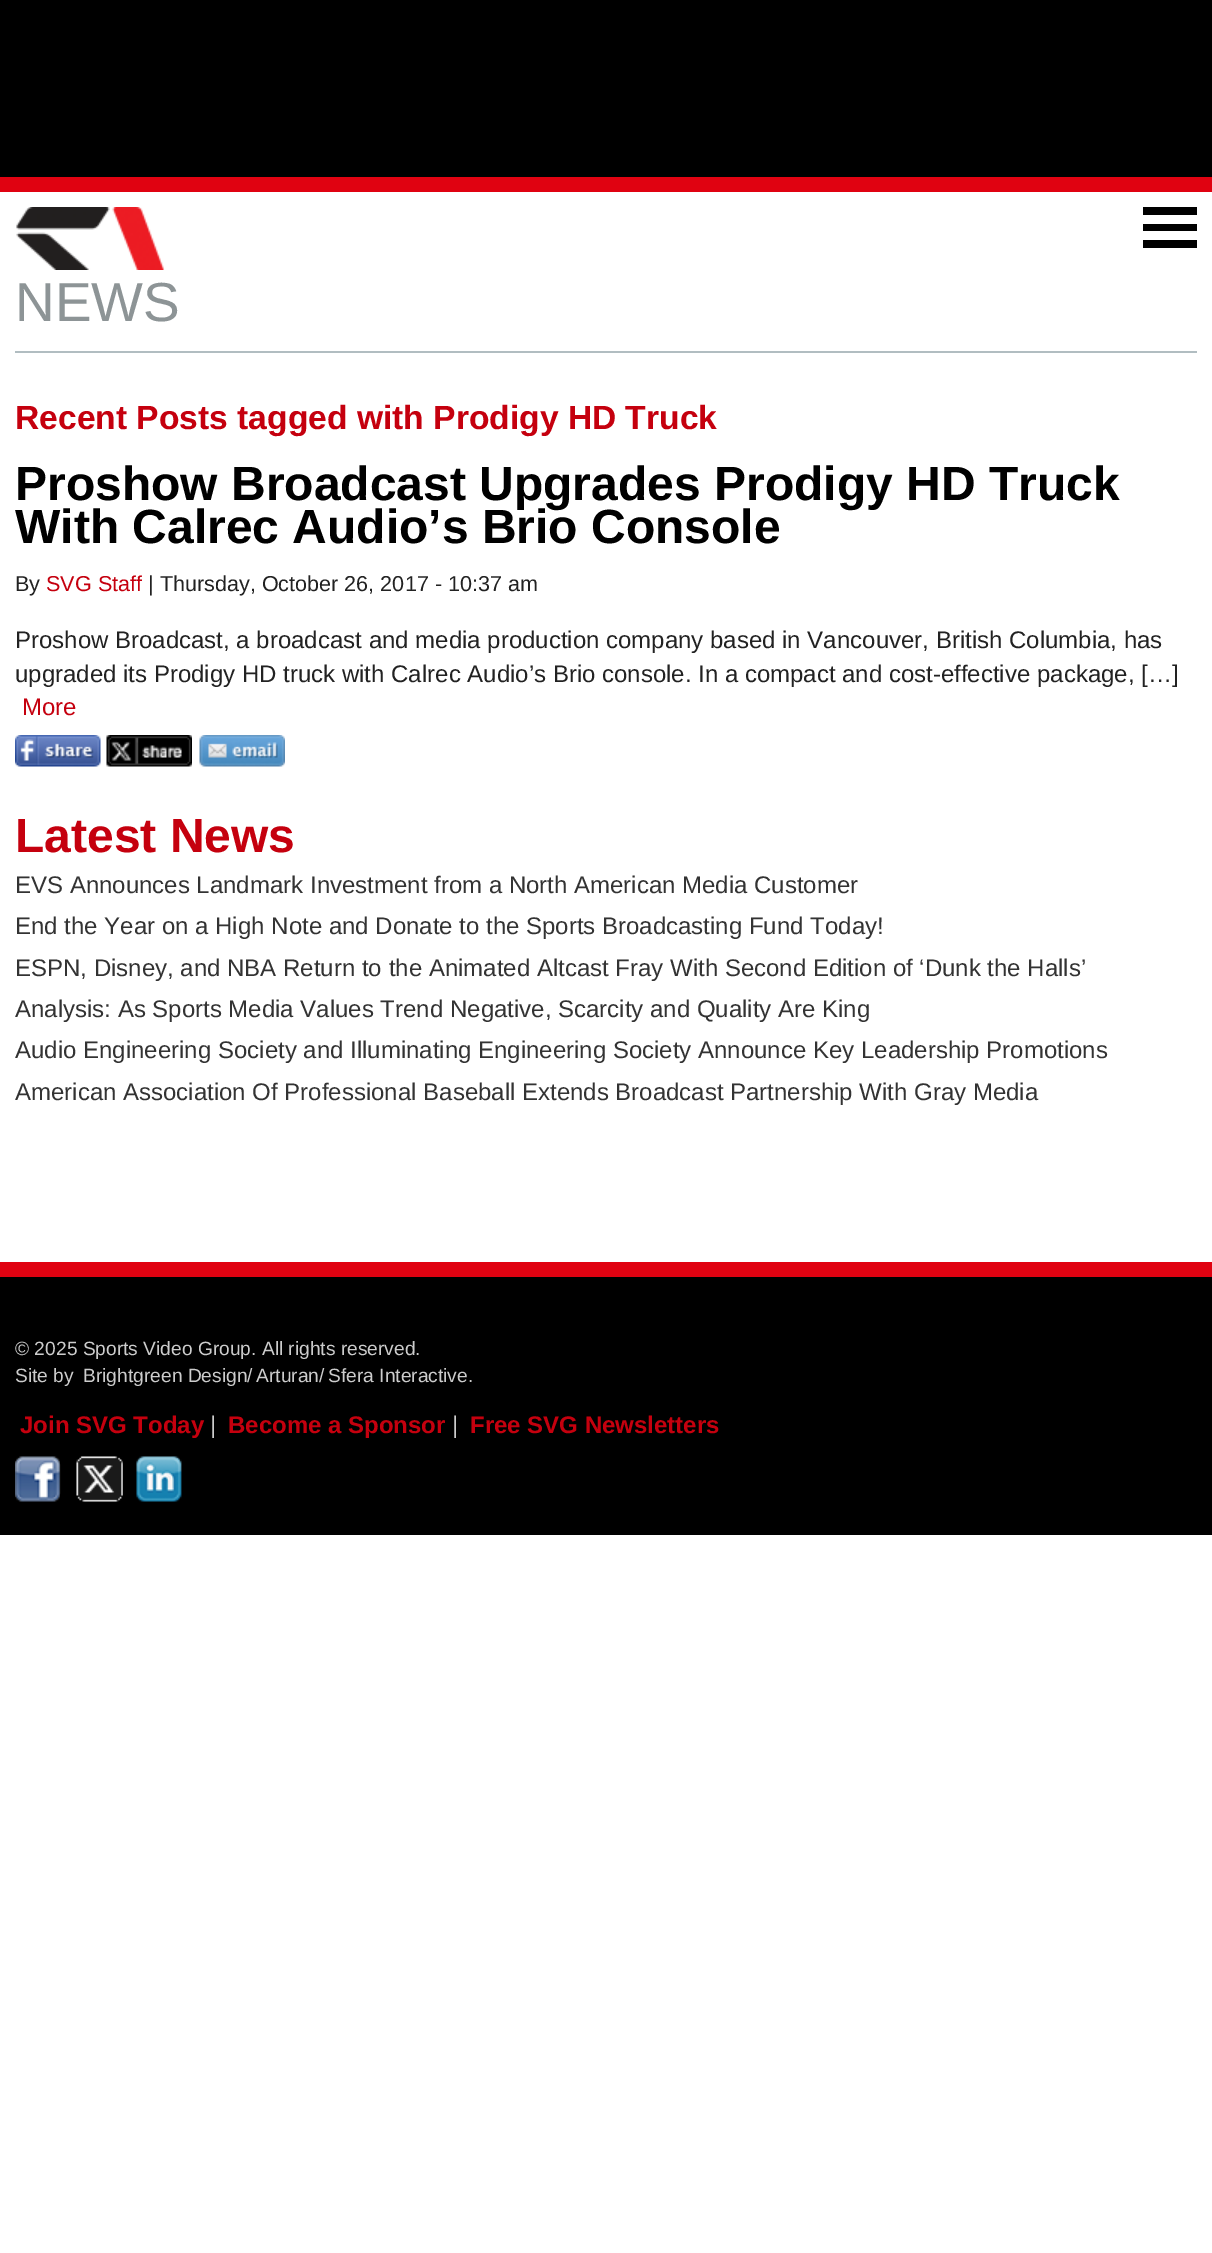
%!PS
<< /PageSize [1212 2253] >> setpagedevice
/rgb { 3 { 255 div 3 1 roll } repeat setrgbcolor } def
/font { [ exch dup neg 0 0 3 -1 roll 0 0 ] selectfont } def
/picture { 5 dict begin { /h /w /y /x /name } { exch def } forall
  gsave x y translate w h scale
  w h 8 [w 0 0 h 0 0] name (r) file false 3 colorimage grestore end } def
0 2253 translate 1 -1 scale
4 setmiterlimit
255 255 255 rgb
0 0 1212 2253 rectfill
[
  [0 0 1212 177 0 0 0]
  [0 177 1212 15 224 2 17]
  [1143 207 54 8 0 0 0]
  [1143 224 54 7 0 0 0]
  [1143 240 54 8 0 0 0]
] { aload pop rgb rectfill } forall
(img/1.rgb) 16 207 149 63 picture
177 189 193 rgb
15 351 1182 2 rectfill
(img/2.rgb) 15 735 86 32 picture
(img/3.rgb) 106 735 86 32 picture
(img/4.rgb) 199 735 86 32 picture
0 0 0 rgb
0 1277 1212 258 rectfill
224 2 17 rgb
0 1262 1212 15 rectfill
(img/5.rgb) 15 1456 46 46 picture
(img/6.rgb) 76 1456 47 46 picture
(img/7.rgb) 136 1456 46 46 picture
/LiberationSans-Regular 55 font
141 148 150 rgb
15 321 moveto (NEWS) show
/LiberationSans-Bold 33.6 font
197 0 14 rgb
15 429 moveto (Recent Posts tagged with Prodigy HD Truck) show
/LiberationSans-Bold 48 font
0 0 0 rgb
15 500 moveto (Proshow Broadcast Upgrades Prodigy HD Truck) show
15 543 moveto (With Calrec Audio’s Brio Console) show
/LiberationSans-Regular 21.6 font
34 34 34 rgb
15 591 moveto (By) show
197 0 14 rgb
46 591 moveto (SVG Staff) show
34 34 34 rgb
148 591 moveto (| Thursday, October 26, 2017 - 10:37 am) show
/LiberationSans-Regular 24 font
15 648 moveto (Proshow Broadcast, a broadcast and media production company based in Vancouver, British Columbia, has) show
15 682 moveto (upgraded its Prodigy HD truck with Calrec Audio’s Brio console. In a compact and cost-effective package, […]) show
197 0 14 rgb
22 715 moveto (More) show
/LiberationSans-Bold 48 font
15 852 moveto (Latest News) show
/LiberationSans-Regular 24 font
51 51 51 rgb
[
  [(EVS Announces Landmark Investment from a North American Media Customer) 15 893]
  [(End the Year on a High Note and Donate to the Sports Broadcasting Fund Today!) 15 934]
  [(ESPN, Disney, and NBA Return to the Animated Altcast Fray With Second Edition of ‘Dunk the Halls’) 15 976]
  [(Analysis: As Sports Media Values Trend Negative, Scarcity and Quality Are King) 15 1017]
  [(Audio Engineering Society and Illuminating Engineering Society Announce Key Leadership Promotions) 15 1058]
  [(American Association Of Professional Baseball Extends Broadcast Partnership With Gray Media) 15 1100]
] { aload pop moveto show } forall
/LiberationSans-Regular 19.2 font
204 204 204 rgb
[
  [(© 2025 Sports Video Group. All rights reserved.) 15 1355]
  [(Site by) 15 1382]
  [(Brightgreen Design/) 83 1382]
  [(Arturan/) 256 1382]
  [(Sfera Interactive.) 328 1382]
] { aload pop moveto show } forall
/LiberationSans-Bold 24 font
197 0 14 rgb
20 1433 moveto (Join SVG Today) show
/LiberationSans-Regular 24 font
204 204 204 rgb
210 1433 moveto (|) show
/LiberationSans-Bold 24 font
197 0 14 rgb
228 1433 moveto (Become a Sponsor) show
/LiberationSans-Regular 24 font
204 204 204 rgb
452 1433 moveto (|) show
/LiberationSans-Bold 24 font
197 0 14 rgb
470 1433 moveto (Free SVG Newsletters) show
showpage
